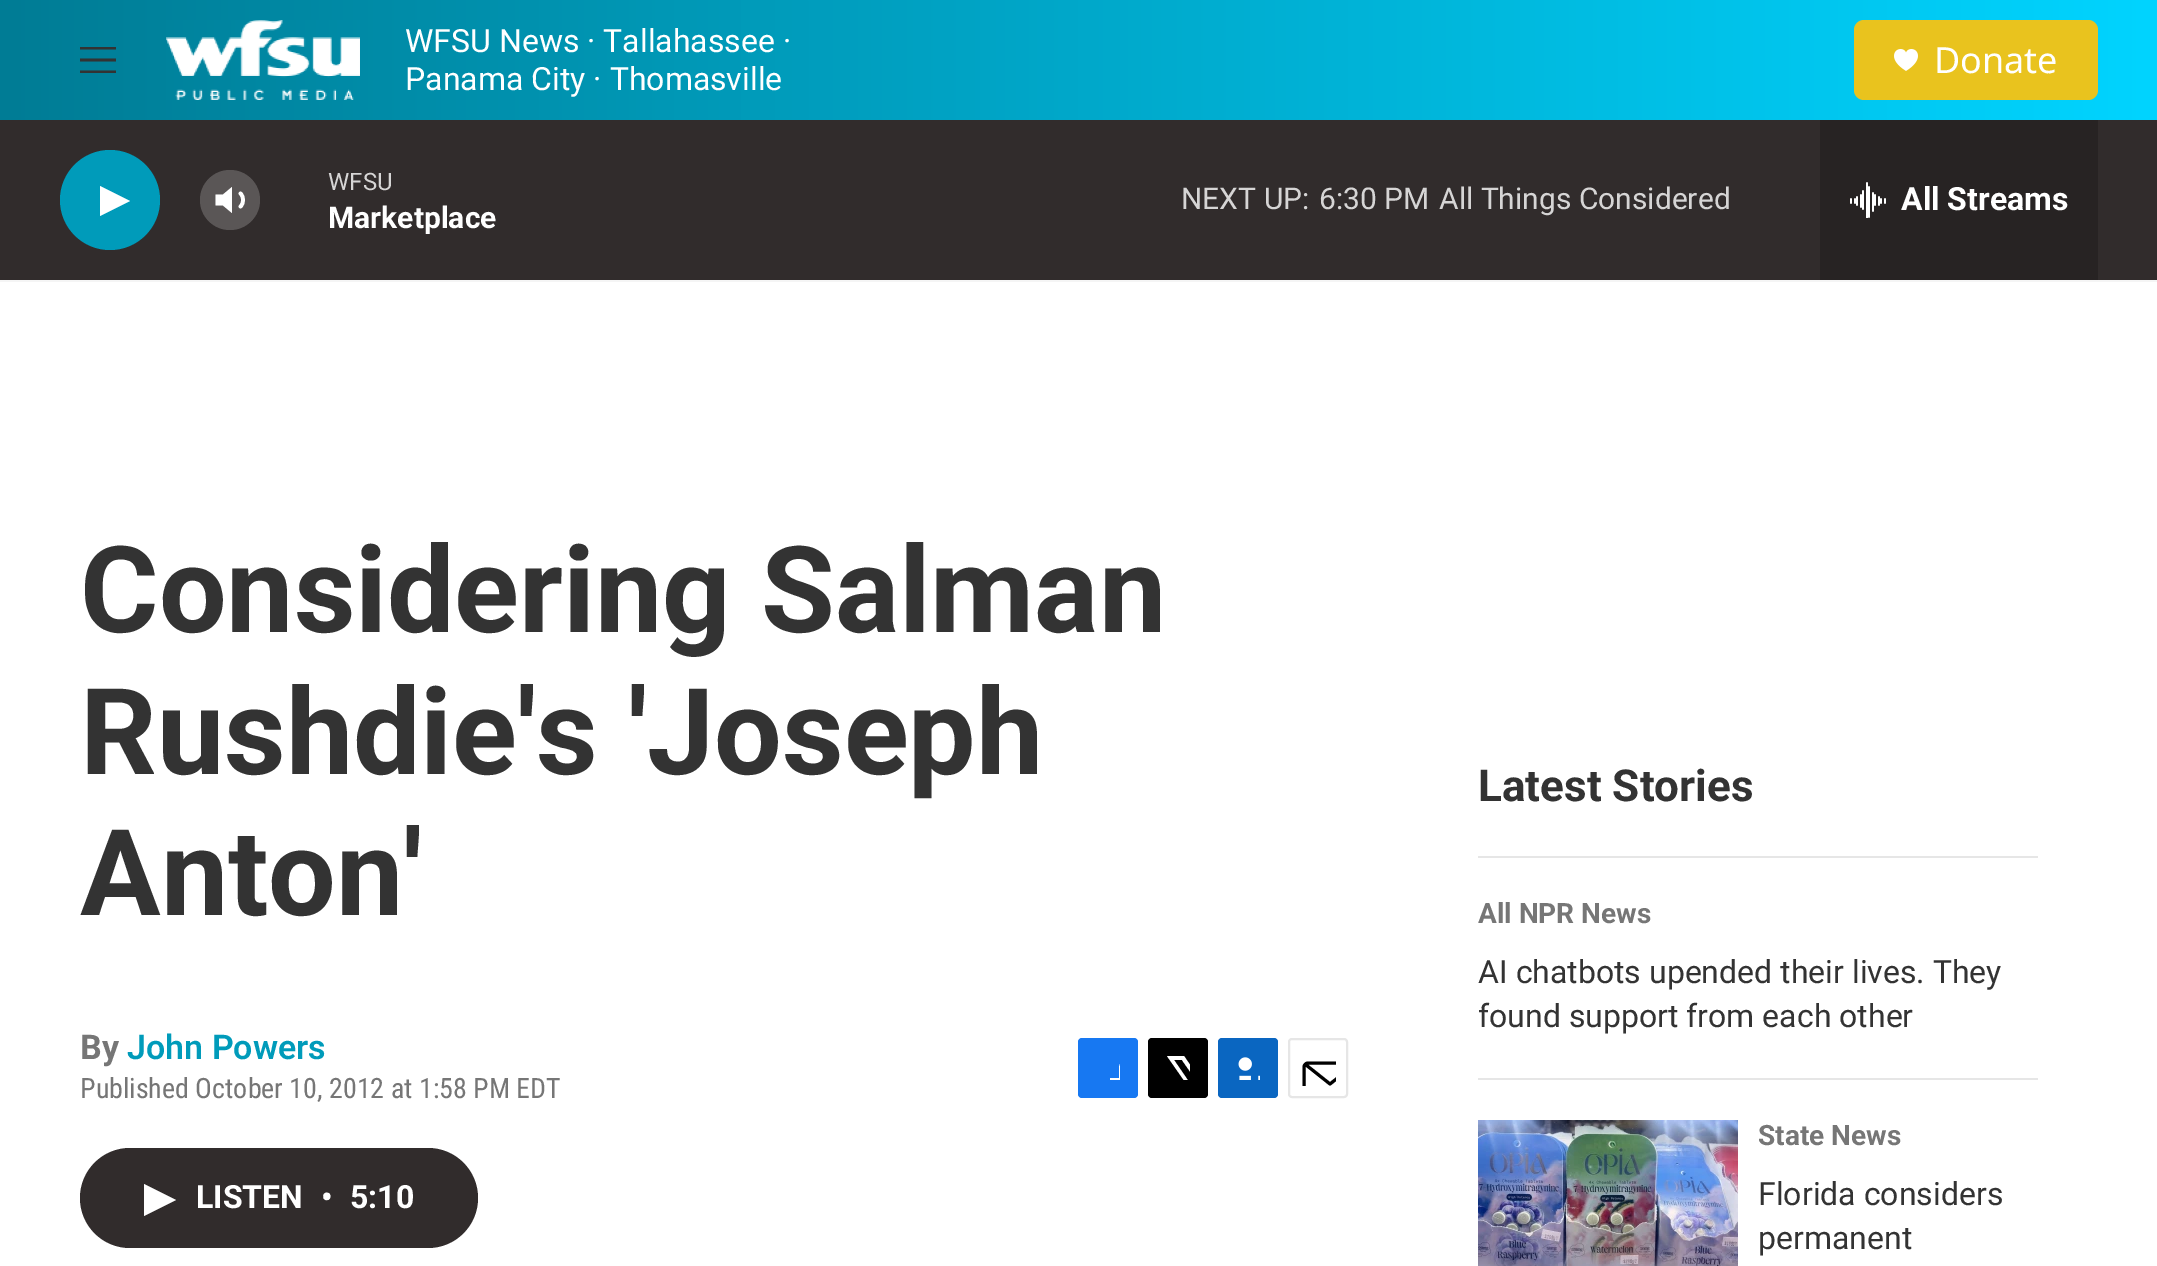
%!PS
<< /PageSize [2157 1266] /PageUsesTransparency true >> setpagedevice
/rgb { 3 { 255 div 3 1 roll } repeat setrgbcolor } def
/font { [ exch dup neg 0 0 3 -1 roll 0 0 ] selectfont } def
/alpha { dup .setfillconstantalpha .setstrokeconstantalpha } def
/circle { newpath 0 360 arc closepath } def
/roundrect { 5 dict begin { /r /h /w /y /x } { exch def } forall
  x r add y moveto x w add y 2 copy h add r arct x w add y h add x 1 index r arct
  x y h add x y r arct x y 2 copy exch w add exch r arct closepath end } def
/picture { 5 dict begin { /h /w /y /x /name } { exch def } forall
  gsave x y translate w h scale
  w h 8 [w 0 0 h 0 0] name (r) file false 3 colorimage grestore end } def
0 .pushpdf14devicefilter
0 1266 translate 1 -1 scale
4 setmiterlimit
255 255 255 rgb
0 0 2157 1266 rectfill
gsave 0 0 moveto 2157 0 lineto 2157 120 lineto 0 120 lineto closepath clip newpath
<< /ShadingType 2 /ColorSpace /DeviceRGB /Coords [0 140 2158 140] /Extend [true true] /Function << /FunctionType 3 /Domain [0 1] /Functions [<< /FunctionType 2 /Domain [0 1] /C0 [0 0.486 0.584] /C1 [0 0.608 0.729] /N 1 >> << /FunctionType 2 /Domain [0 1] /C0 [0 0.608 0.729] /C1 [0 0.831 1] /N 1 >>] /Bounds [0.35] /Encode [0 1 0 1] >> >> shfill grestore
245 245 245 rgb
0 280 2157 2 rectfill
51 51 51 rgb
80 61.5 moveto 80 58.5 lineto 116 58.5 lineto 116 61.5 lineto closepath 80 49.5 moveto 80 47 lineto 116 47 lineto 116 49.5 lineto closepath 80 73 moveto 80 70.5 lineto 116 70.5 lineto 116 73 lineto closepath eofill
(img/1.rgb) 166 20 194 80 picture
233 195 30 rgb
1854 20 244 80 10 roundrect fill
(img/2.rgb) 1894 49 24 22 picture
49 44 44 rgb
0 120 2157 160 rectfill
0 155 186 rgb
110 200 50 circle fill
255 255 255 rgb
100 186 moveto 130 201 lineto 100 216 lineto closepath fill
232 187 moveto 223 194.5 lineto 215.5 194.5 lineto 215.5 205.5 lineto 223 205.5 lineto 232 213 lineto closepath fill
3.7 setlinewidth
1 setlinecap
1 setlinejoin
240.5 193.5 moveto 244 197 244 203 240.5 206.5 curveto stroke
0.2 alpha
230 200 30 circle fill
1 alpha
39 35 35 rgb
1820 120 278 160 rectfill
(img/3.rgb) 1850 182 36 36 picture
23 120 242 rgb
1078 1038 60 60 4 roundrect fill
gsave
1096 1056 24 24 rectclip
255 255 255 rgb
1129 1098 moveto 1119 1098 lineto 1119 1088 lineto 1110 1088 lineto 1110 1078 lineto 1119 1078 lineto 1119 1067 lineto 1121 1058 1130 1056 1138 1057 curveto 1138 1066 lineto 1127 1066 1129 1069 1129 1078 curveto 1138 1078 lineto 1138 1083 lineto 1137 1088 lineto 1129 1088 lineto closepath fill
grestore
0 0 0 rgb
1148 1038 60 60 4 roundrect fill
gsave
1166 1056 24 24 rectclip
255 255 255 rgb
1202 1081 moveto 1208 1090 lineto 1208 1092 1209 1095 1207 1096 curveto 1182 1060 lineto 1174 1060 lineto 1200 1098 lineto 1195 1098 lineto 1192 1093 lineto 1188 1098 lineto 1182 1098 lineto 1190 1089 lineto 1167 1056 lineto 1184 1056 lineto 1199 1078 lineto 1208 1068 lineto 1208 1074 lineto closepath fill
grestore
10 102 193 rgb
1218 1038 60 60 4 roundrect fill
(img/4.rgb) 1238 1057 22 23 picture
230 230 230 rgb
2 setlinewidth
0 setlinecap
0 setlinejoin
1289 1039 58 58 3 roundrect stroke
gsave
1300 1050 36 36 rectclip
0 0 0 rgb
3 setlinewidth
1 setlinecap
1 setlinejoin
1356 1094 moveto 1356 1096 1354 1097.5 1352 1097.5 curveto 1308 1097.5 lineto 1306 1097.5 1304 1096 1304 1094 curveto 1304 1067 lineto 1304 1065 1306 1063 1308 1063 curveto 1352 1063 lineto 1354 1063 1356 1065 1356 1067 curveto closepath 1354.5 1064.5 moveto 1330 1084 lineto 1305.5 1064.5 lineto stroke
grestore
49 44 44 rgb
80 1148 398 100 50 roundrect fill
255 255 255 rgb
144 1184 moveto 176 1200 lineto 144 1216 lineto closepath fill
230 230 230 rgb
1478 856 560 2 rectfill
1478 1078 560 2 rectfill
(img/5.rgb) 1478 1120 260 146 picture
/Roboto-Regular 32 font
255 255 255 rgb
405 52 moveto (WFSU News · Tallahassee ·) show
405 90 moveto (Panama City · Thomasville) show
/NotoSans-Regular 36 font
1934 73 moveto (Donate) show
/Roboto-Regular 24 font
214 213 213 rgb
328 190 moveto (WFSU) show
/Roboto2-Bold 30 font
255 255 255 rgb
328 228 moveto (Marketplace) show
/Roboto-Regular 30 font
214 213 213 rgb
[
  [(NEXT UP:) 1181 209]
  [(6:30 PM) 1319 209]
  [(All Things Considered) 1439 209]
] { aload pop moveto show } forall
/Roboto2-Bold 32 font
255 255 255 rgb
1901 210 moveto (All Streams) show
/Roboto-Bold 120 font
51 51 51 rgb
[
  [(Considering Salman) 80 632]
  [(Rushdie's 'Joseph) 80 774]
  [(Anton') 80 915]
] { aload pop moveto show } forall
/Roboto-Bold 34 font
118 118 118 rgb
80 1059 moveto (By) show
/Roboto-SemiBold 34 font
0 155 186 rgb
127 1059 moveto (John Powers) show
/RobotoCondensed-Regular 28 font
118 118 118 rgb
80 1098 moveto (Published October 10, 2012 at 1:58 PM EDT) show
/Roboto2-Bold 32 font
255 255 255 rgb
[
  [(LISTEN) 196 1208]
  [(•) 321 1208]
  [(5:10) 350 1208]
] { aload pop moveto show } forall
/Roboto-Bold 44 font
51 51 51 rgb
1478 801 moveto (Latest Stories) show
/Roboto-Bold 28 font
118 118 118 rgb
1478 923 moveto (All NPR News) show
/Roboto-Regular 32 font
51 51 51 rgb
1478 983 moveto (AI chatbots upended their lives. They) show
1478 1027 moveto (found support from each other) show
/Roboto-Bold 28 font
118 118 118 rgb
1758 1145 moveto (State News) show
/Roboto-Regular 32 font
51 51 51 rgb
1758 1205 moveto (Florida considers) show
1758 1249 moveto (permanent) show
.poppdf14devicefilter showpage
